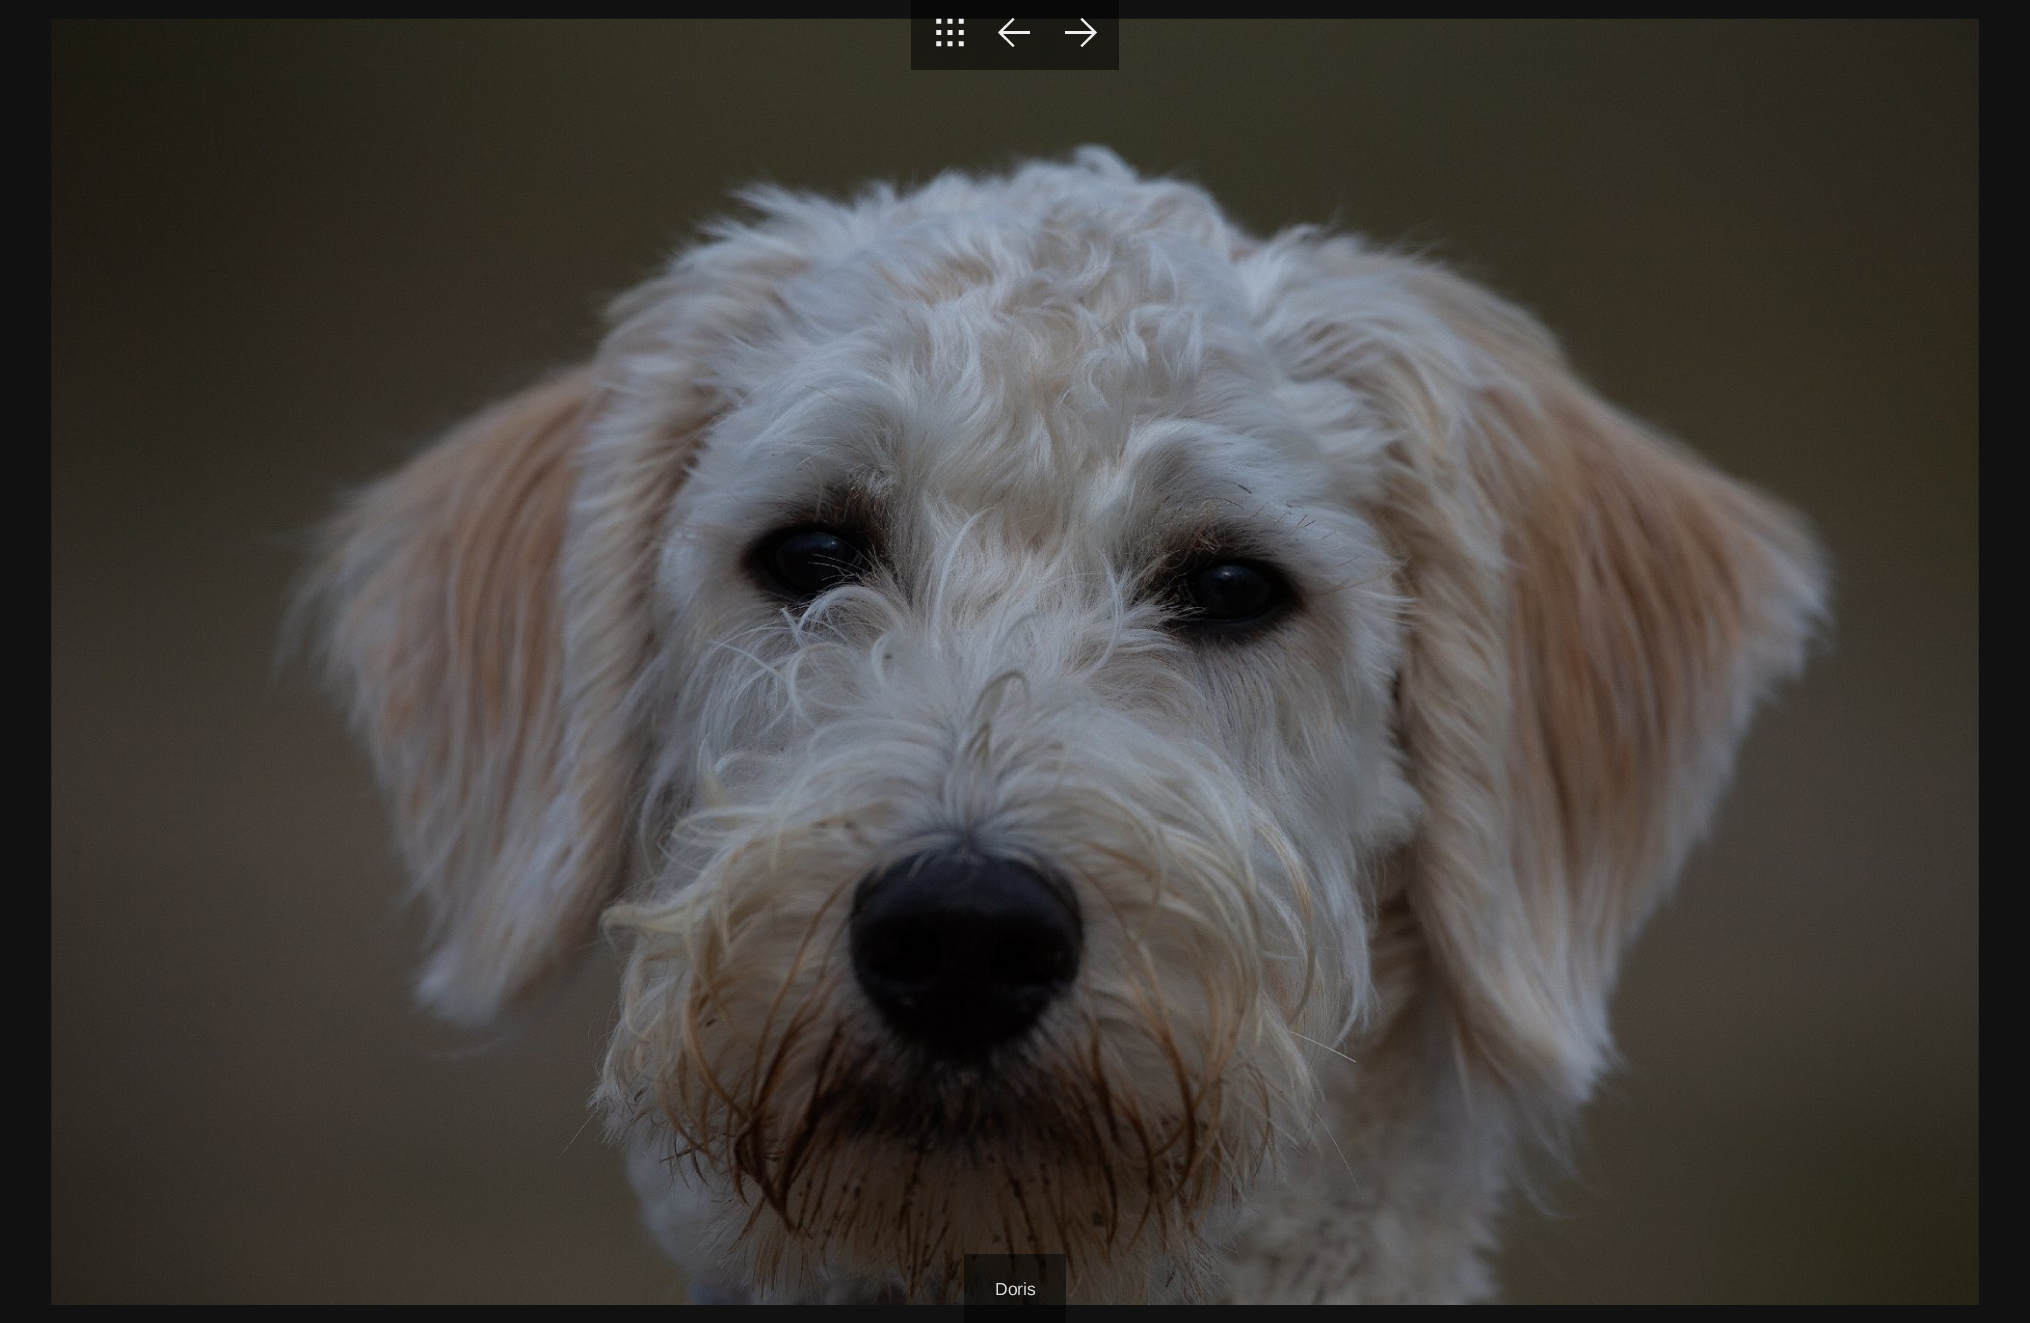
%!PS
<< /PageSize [2030 1323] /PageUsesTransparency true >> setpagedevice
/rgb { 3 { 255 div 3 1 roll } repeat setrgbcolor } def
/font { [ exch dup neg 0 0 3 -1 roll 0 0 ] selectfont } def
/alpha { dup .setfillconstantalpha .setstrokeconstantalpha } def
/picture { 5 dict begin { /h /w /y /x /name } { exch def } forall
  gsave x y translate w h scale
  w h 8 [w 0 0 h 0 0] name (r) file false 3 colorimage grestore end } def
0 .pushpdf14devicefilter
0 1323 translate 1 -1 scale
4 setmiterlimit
17 17 17 rgb
0 0 2030 1323 rectfill
(img/2.rgb) 51 18 1928 1287 picture
0.5 alpha
0 0 0 rgb
911 0 208 70 rectfill
1 alpha
(img/1.rgb) 936 18 28 29 picture
238 238 238 rgb
1030 31 moveto 1003 31 lineto 1014.5 19.5 lineto 1013 18 lineto 998 32.5 lineto 1013 47 lineto 1014.5 45.5 lineto 1003 34 lineto 1030 34 lineto closepath fill
1065 31 moveto 1092 31 lineto 1080.5 19.5 lineto 1082 18 lineto 1097 32.5 lineto 1082 47 lineto 1080.5 45.5 lineto 1092 34 lineto 1065 34 lineto closepath fill
0.5 alpha
0 0 0 rgb
964 1254 102 69 rectfill
/LiberationSans-Regular 17.5 font
1 alpha
221 221 221 rgb
995 1295 moveto (Doris) show
.poppdf14devicefilter showpage
